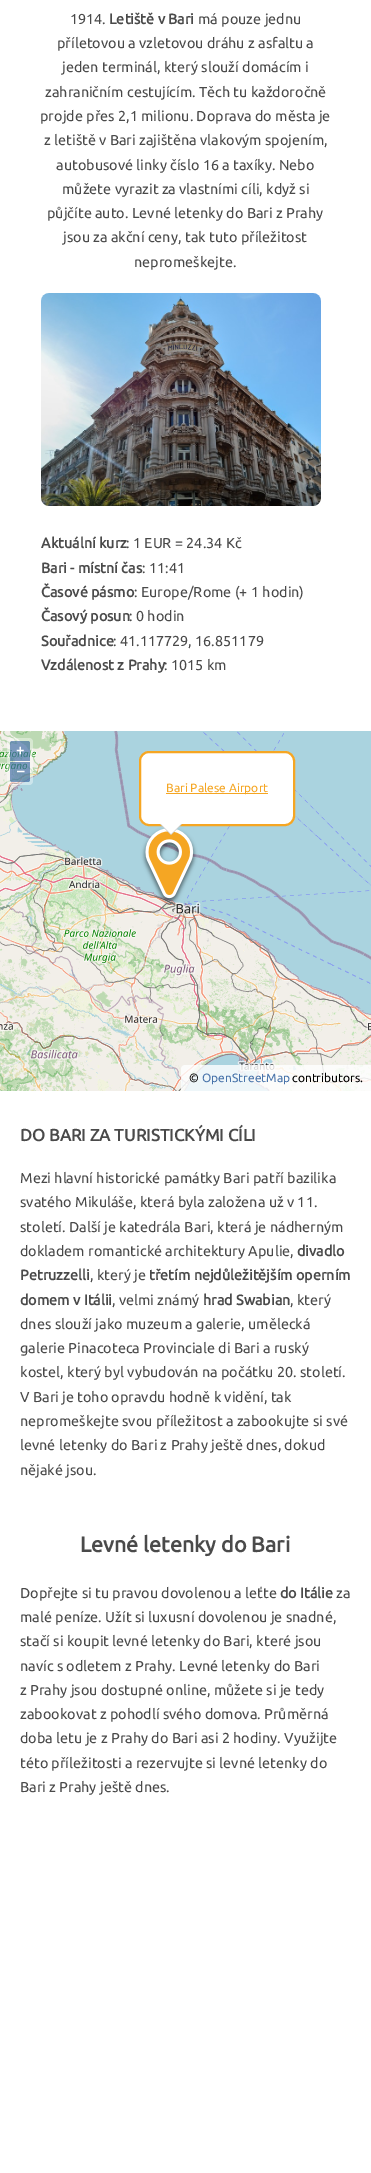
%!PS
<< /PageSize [371 2173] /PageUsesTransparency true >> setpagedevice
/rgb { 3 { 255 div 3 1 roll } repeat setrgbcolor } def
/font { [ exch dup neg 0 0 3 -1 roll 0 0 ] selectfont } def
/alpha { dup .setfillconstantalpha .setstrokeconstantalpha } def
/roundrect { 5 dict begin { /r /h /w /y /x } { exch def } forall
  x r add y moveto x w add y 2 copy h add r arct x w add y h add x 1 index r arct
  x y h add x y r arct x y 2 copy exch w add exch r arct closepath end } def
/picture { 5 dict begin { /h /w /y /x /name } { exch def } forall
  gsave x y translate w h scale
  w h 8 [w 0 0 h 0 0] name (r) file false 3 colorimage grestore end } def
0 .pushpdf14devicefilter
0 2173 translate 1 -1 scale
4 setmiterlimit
255 255 255 rgb
0 0 371 2173 rectfill
(img/1.rgb) 41 293 280 213 picture
(img/2.rgb) 0 731 371 360 picture
0.4 alpha
7 738 26 47 4 roundrect fill
0.5 alpha
0 60 136 rgb
12 741 moveto 28 741 lineto 29 741 30 742 30 743 curveto 30 761 lineto 10 761 lineto 10 743 lineto 10 742 11 741 12 741 curveto closepath fill
10 762 moveto 30 762 lineto 30 780 lineto 30 781 29 782 28 782 curveto 12 782 lineto 11 782 10 781 10 780 curveto closepath fill
1 alpha
255 255 255 rgb
140 752 154 73 9 roundrect gsave fill grestore
246 166 35 rgb
2 setlinewidth
stroke
245 166 35 rgb
166 793 102 1 rectfill
204 204 204 rgb
160 824 moveto 182 824 lineto 171 835 lineto closepath fill
255 255 255 rgb
161 824 moveto 181 824 lineto 171 834 lineto closepath fill
0.8 alpha
185 1065 moveto 371 1065 lineto 371 1091 lineto 181 1091 lineto 181 1069 lineto 181 1067 183 1065 185 1065 curveto closepath fill
/Ubuntu-Regular 14.4 font
1 alpha
74 74 74 rgb
70 24 moveto (1914.) show
/Ubuntu-Bold 14.4 font
109 24 moveto (Letiště v Bari) show
/Ubuntu-Regular 14.4 font
[
  [(má pouze jednu) 198 24]
  [(příletovou a vzletovou dráhu z asfaltu a) 57 48]
  [(jeden terminál, který slouží domácím i) 62 72]
  [(zahraničním cestujícím. Těch tu každoročně) 45 97]
  [(projde přes 2,1 milionu. Doprava do města je) 40 121]
  [(z letiště v Bari zajištěna vlakovým spojením,) 44 145]
  [(autobusové linky číslo 16 a taxíky. Nebo) 56 170]
  [(můžete vyrazit za vlastními cíli, když si) 62 194]
  [(půjčíte auto. Levné letenky do Bari z Prahy) 47 218]
  [(jsou za akční ceny, tak tuto příležitost) 63 242]
  [(nepromeškejte.) 134 267]
] { aload pop moveto show } forall
/Ubuntu-Bold 14.4 font
41 548 moveto (Aktuální kurz) show
/Ubuntu-Regular 14.4 font
126 548 moveto (: 1 EUR = 24.34 Kč) show
/Ubuntu-Bold 14.4 font
41 573 moveto (Bari - místní čas) show
/Ubuntu-Regular 14.4 font
142 573 moveto (: 11:41) show
/Ubuntu-Bold 14.4 font
41 597 moveto (Časové pásmo) show
/Ubuntu-Regular 14.4 font
134 597 moveto (: Europe/Rome \(+ 1 hodin\)) show
/Ubuntu-Bold 14.4 font
41 621 moveto (Časový posun) show
/Ubuntu-Regular 14.4 font
129 621 moveto (: 0 hodin) show
/Ubuntu-Bold 14.4 font
41 646 moveto (Souřadnice) show
/Ubuntu-Regular 14.4 font
113 646 moveto (: 41.117729, 16.851179) show
/Ubuntu-Bold 14.4 font
41 670 moveto (Vzdálenost z Prahy) show
/Ubuntu-Regular 14.4 font
164 670 moveto (: 1015 km) show
/Ubuntu-Bold 14.4 font
255 255 255 rgb
16 755 moveto (+) show
17 776 moveto (–) show
/Ubuntu-Regular 12 font
245 166 35 rgb
166 792 moveto (Bari Palese Airport) show
0 0 0 rgb
189 1082 moveto (©) show
73 116 170 rgb
202 1082 moveto (OpenStreetMap) show
0 0 0 rgb
292 1082 moveto (contributors.) show
/Ubuntu-Bold 16.8 font
74 74 74 rgb
20 1141 moveto (DO BARI ZA TURISTICKÝMI CÍLI) show
/Ubuntu-Regular 14.4 font
[
  [(Mezi hlavní historické památky Bari patří bazilika) 20 1183]
  [(svatého Mikuláše, která byla založena už v 11.) 20 1207]
  [(století. Další je katedrála Bari, která je nádherným) 20 1232]
  [(dokladem romantické architektury Apulie,) 20 1256]
] { aload pop moveto show } forall
/Ubuntu-Bold 14.4 font
297 1256 moveto (divadlo) show
20 1280 moveto (Petruzzelli) show
/Ubuntu-Regular 14.4 font
90 1280 moveto (, který je) show
/Ubuntu-Bold 14.4 font
149 1280 moveto (třetím nejdůležitějším operním) show
20 1305 moveto (domem v Itálii) show
/Ubuntu-Regular 14.4 font
112 1305 moveto (, velmi známý) show
/Ubuntu-Bold 14.4 font
203 1305 moveto (hrad Swabian) show
/Ubuntu-Regular 14.4 font
[
  [(, který) 290 1305]
  [(dnes slouží jako muzeum a galerie, umělecká) 20 1329]
  [(galerie Pinacoteca Provinciale di Bari a ruský) 20 1353]
  [(kostel, který byl vybudován na počátku 20. století.) 20 1377]
  [(V Bari je toho opravdu hodně k vidění, tak) 20 1402]
  [(nepromeškejte svou příležitost a zabookujte si své) 20 1426]
  [(levné letenky do Bari z Prahy ještě dnes, dokud) 20 1450]
  [(nějaké jsou.) 20 1475]
] { aload pop moveto show } forall
/Ubuntu-Bold 21.5 font
80 1552 moveto (Levné letenky do Bari) show
/Ubuntu-Regular 14.4 font
20 1598 moveto (Dopřejte si tu pravou dovolenou a leťte) show
/Ubuntu-Bold 14.4 font
280 1598 moveto (do Itálie) show
/Ubuntu-Regular 14.4 font
[
  [(za) 336 1598]
  [(malé peníze. Užít si luxusní dovolenou je snadné,) 20 1622]
  [(stačí si koupit levné letenky do Bari, které jsou) 20 1646]
  [(navíc s odletem z Prahy. Levné letenky do Bari) 20 1671]
  [(z Prahy jsou dostupné online, můžete si je tedy) 20 1695]
  [(zabookovat z pohodlí svého domova. Průměrná) 20 1719]
  [(doba letu je z Prahy do Bari asi 2 hodiny. Využijte) 20 1743]
  [(této příležitosti a rezervujte si levné letenky do) 20 1768]
  [(Bari z Prahy ještě dnes.) 20 1792]
] { aload pop moveto show } forall
.poppdf14devicefilter showpage
